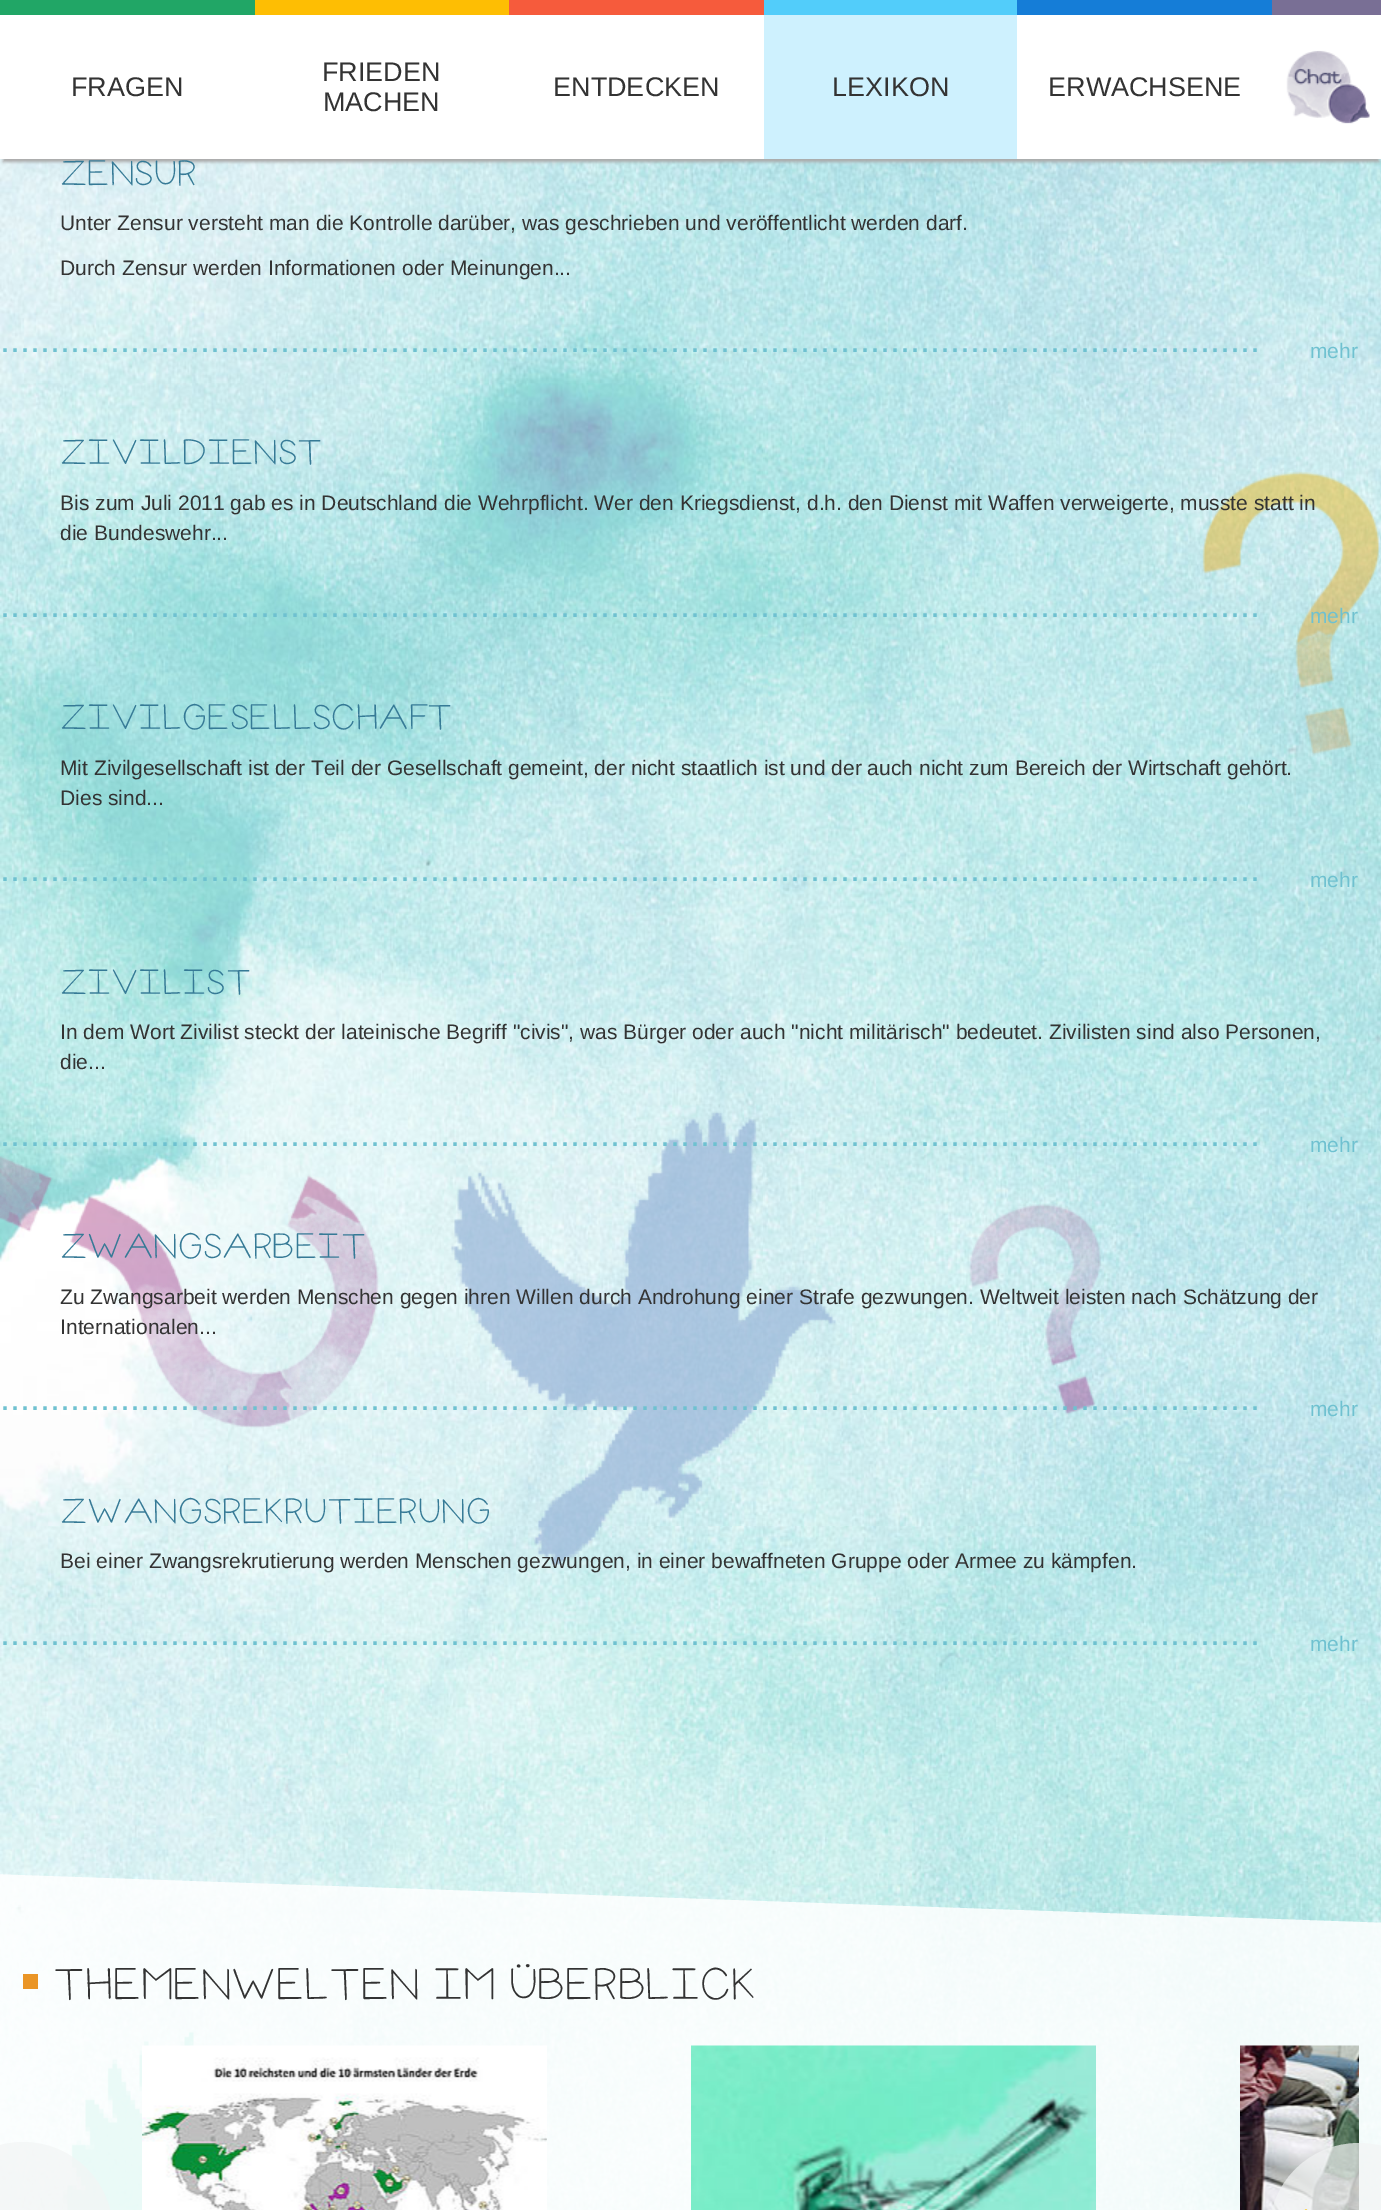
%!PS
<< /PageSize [1381 2210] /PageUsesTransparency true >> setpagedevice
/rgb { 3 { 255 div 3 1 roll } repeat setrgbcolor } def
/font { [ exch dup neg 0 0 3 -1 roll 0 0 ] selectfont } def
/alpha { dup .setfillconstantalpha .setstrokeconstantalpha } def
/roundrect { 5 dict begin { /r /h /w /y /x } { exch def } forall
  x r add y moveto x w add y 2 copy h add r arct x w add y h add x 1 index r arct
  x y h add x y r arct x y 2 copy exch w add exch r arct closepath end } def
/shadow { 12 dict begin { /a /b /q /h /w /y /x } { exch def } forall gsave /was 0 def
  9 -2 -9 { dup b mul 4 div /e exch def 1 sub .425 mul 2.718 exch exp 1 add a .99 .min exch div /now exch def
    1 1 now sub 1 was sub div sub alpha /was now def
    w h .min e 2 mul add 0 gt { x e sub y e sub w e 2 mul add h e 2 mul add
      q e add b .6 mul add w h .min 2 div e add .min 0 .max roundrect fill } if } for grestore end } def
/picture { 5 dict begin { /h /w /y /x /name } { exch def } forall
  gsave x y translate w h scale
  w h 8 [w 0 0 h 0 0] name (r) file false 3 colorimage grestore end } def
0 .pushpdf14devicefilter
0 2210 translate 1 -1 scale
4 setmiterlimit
255 255 255 rgb
0 0 1381 2210 rectfill
(img/5.rgb) 0 159 1381 2051 picture
170 170 170 rgb
3 9 1376 153 0 1.5 1 shadow
[
  [0 15 1381 144 255 255 255]
  [0 0 255 15 33 166 102]
  [255 0 254 15 254 190 3]
  [509 0 255 15 246 91 60]
  [764 0 253 15 82 205 250]
  [764 15 253 144 206 241 254]
  [1017 0 255 15 21 125 215]
  [1272 0 109 15 121 111 149]
] { aload pop rgb rectfill } forall
(img/1.rgb) 1286 50 84 74 picture
(img/6.rgb) 0 471 1379 1739 picture
0.85 alpha
255 255 255 rgb
-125 1870 moveto 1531 1928 lineto 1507 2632 lineto -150 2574 lineto closepath fill
1 alpha
234 149 38 rgb
23 1974 15 15 rectfill
0.7 alpha
242 244 244 rgb
-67 2142 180 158 90 roundrect fill
1 alpha
(img/2.rgb) 142 2045 405 165 picture
(img/3.rgb) 691 2045 405 165 picture
(img/4.rgb) 1240 2045 119 165 picture
0.7 alpha
1359 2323 moveto 1309 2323 1269 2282 1269 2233 curveto 1269 2183 1309 2143 1359 2143 curveto 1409 2143 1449 2183 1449 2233 curveto 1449 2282 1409 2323 1359 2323 curveto closepath fill
1 alpha
253 192 0 rgb
1304 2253 moveto 1306 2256 lineto 1329 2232 lineto 1306 2209 lineto 1304 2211 lineto 1325 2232 lineto closepath fill
/LiberationSans-Regular 27 font
51 51 51 rgb
[
  [(FRAGEN) 71 96]
  [(FRIEDEN) 322 81]
  [(MACHEN) 323 111]
  [(ENTDECKEN) 553 96]
  [(LEXIKON) 832 96]
  [(ERWACHSENE) 1048 96]
] { aload pop moveto show } forall
/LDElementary-Regular 36 font
54 122 150 rgb
60 185 moveto (ZENSUR) show
/LiberationSans-Regular 21 font
51 51 51 rgb
60 230 moveto (Unter Zensur versteht man die Kontrolle darüber, was geschrieben und veröffentlicht werden darf.) show
60 275 moveto (Durch Zensur werden Informationen oder Meinungen...) show
/LiberationSans-Regular 36 font
111 193 208 rgb
0 352 moveto (..............................................................................................................................) show
/LiberationSans-Regular 21 font
1310 358 moveto (mehr) show
/LDElementary-Regular 36 font
54 122 150 rgb
60 464 moveto (ZIVILDIENST) show
/LiberationSans-Regular 21 font
51 51 51 rgb
60 510 moveto (Bis zum Juli 2011 gab es in Deutschland die Wehrpflicht. Wer den Kriegsdienst, d.h. den Dienst mit Waffen verweigerte, musste statt in) show
60 540 moveto (die Bundeswehr...) show
/LiberationSans-Regular 36 font
111 193 208 rgb
0 617 moveto (..............................................................................................................................) show
/LiberationSans-Regular 21 font
1310 623 moveto (mehr) show
/LDElementary-Regular 36 font
54 122 150 rgb
60 729 moveto (ZIVILGESELLSCHAFT) show
/LiberationSans-Regular 21 font
51 51 51 rgb
60 775 moveto (Mit Zivilgesellschaft ist der Teil der Gesellschaft gemeint, der nicht staatlich ist und der auch nicht zum Bereich der Wirtschaft gehört.) show
60 805 moveto (Dies sind...) show
/LiberationSans-Regular 36 font
111 193 208 rgb
0 881 moveto (..............................................................................................................................) show
/LiberationSans-Regular 21 font
1310 887 moveto (mehr) show
/LDElementary-Regular 36 font
54 122 150 rgb
60 994 moveto (ZIVILIST) show
/LiberationSans-Regular 21 font
51 51 51 rgb
60 1039 moveto (In dem Wort Zivilist steckt der lateinische Begriff "civis", was Bürger oder auch "nicht militärisch" bedeutet. Zivilisten sind also Personen,) show
60 1069 moveto (die...) show
/LiberationSans-Regular 36 font
111 193 208 rgb
0 1146 moveto (..............................................................................................................................) show
/LiberationSans-Regular 21 font
1310 1152 moveto (mehr) show
/LDElementary-Regular 36 font
54 122 150 rgb
60 1258 moveto (ZWANGSARBEIT) show
/LiberationSans-Regular 21 font
51 51 51 rgb
60 1304 moveto (Zu Zwangsarbeit werden Menschen gegen ihren Willen durch Androhung einer Strafe gezwungen. Weltweit leisten nach Schätzung der) show
60 1334 moveto (Internationalen...) show
/LiberationSans-Regular 36 font
111 193 208 rgb
0 1410 moveto (..............................................................................................................................) show
/LiberationSans-Regular 21 font
1310 1416 moveto (mehr) show
/LDElementary-Regular 36 font
54 122 150 rgb
60 1523 moveto (ZWANGSREKRUTIERUNG) show
/LiberationSans-Regular 21 font
51 51 51 rgb
60 1568 moveto (Bei einer Zwangsrekrutierung werden Menschen gezwungen, in einer bewaffneten Gruppe oder Armee zu kämpfen.) show
/LiberationSans-Regular 36 font
111 193 208 rgb
0 1645 moveto (..............................................................................................................................) show
/LiberationSans-Regular 21 font
1310 1651 moveto (mehr) show
/LDElementary-Regular 45 font
51 51 51 rgb
53 1999 moveto (THEMENWELTEN IM ÜBERBLICK) show
.poppdf14devicefilter showpage
